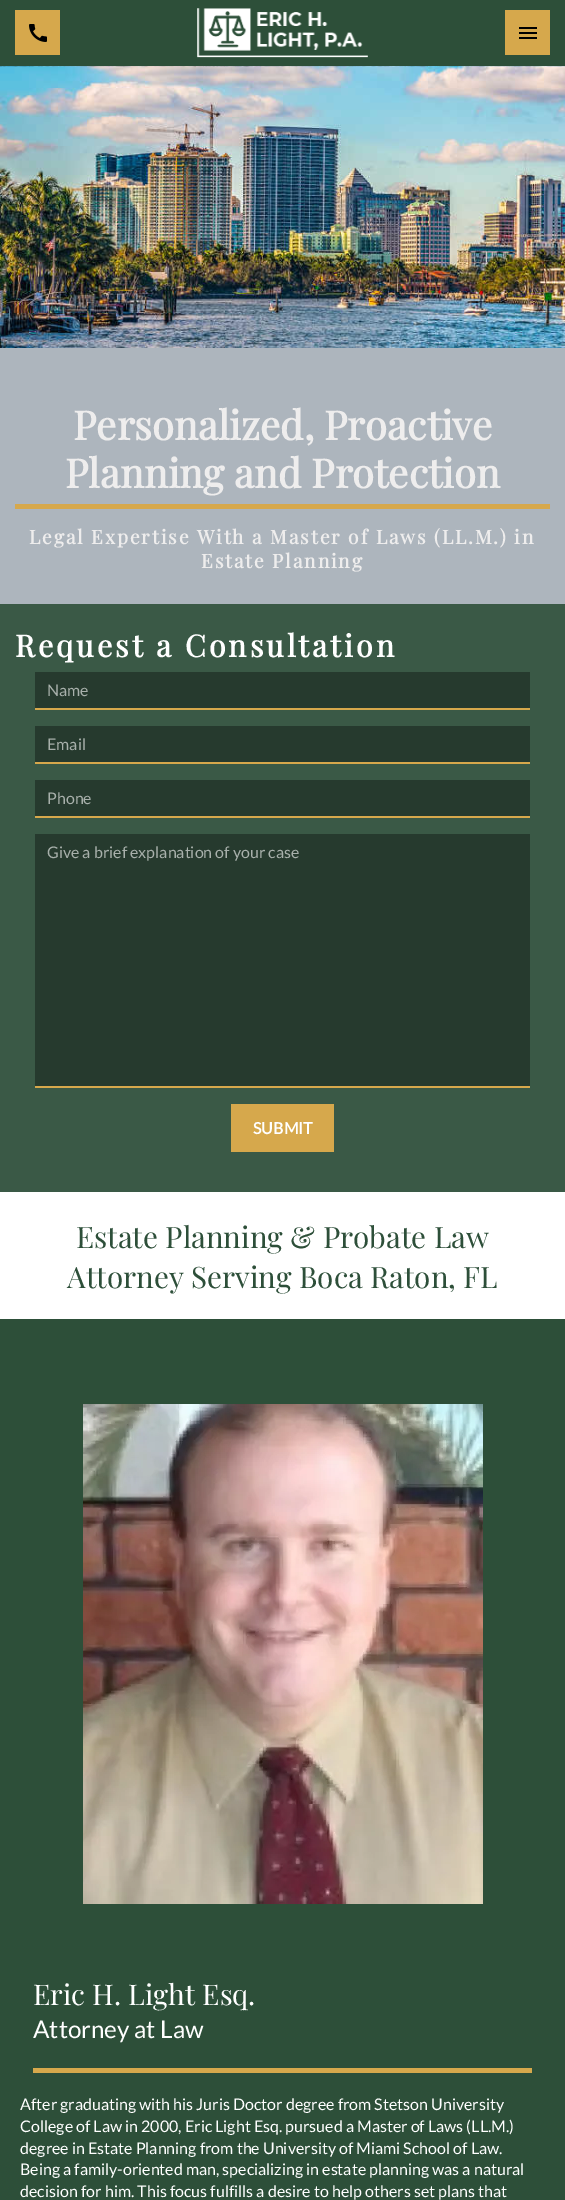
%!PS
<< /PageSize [565 2200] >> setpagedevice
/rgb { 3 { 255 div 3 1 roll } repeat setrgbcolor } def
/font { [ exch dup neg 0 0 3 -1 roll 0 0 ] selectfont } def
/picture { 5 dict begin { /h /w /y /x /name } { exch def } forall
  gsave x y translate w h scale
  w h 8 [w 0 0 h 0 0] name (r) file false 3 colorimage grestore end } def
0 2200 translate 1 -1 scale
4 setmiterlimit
255 255 255 rgb
0 0 565 2200 rectfill
45 79 57 rgb
0 0 565 66 rectfill
214 168 76 rgb
15 10 45 45 rectfill
(img/1.rgb) 29 24 18 18 picture
(img/2.rgb) 197 8 171 50 picture
505 10 45 45 rectfill
(img/3.rgb) 519 27 18 12 picture
(img/4.rgb) 0 66 565 282 picture
[
  [0 348 565 256 173 181 189]
  [15 504 535 5 214 168 76]
  [0 604 565 588 58 89 70]
  [35 672 495 36 38 58 46]
  [35 708 495 2 214 168 76]
  [35 726 495 36 38 58 46]
  [35 762 495 2 214 168 76]
  [35 780 495 36 38 58 46]
  [35 816 495 2 214 168 76]
  [35 834 495 252 38 58 46]
  [35 1086 495 2 214 168 76]
  [231 1104 103 48 214 168 76]
  [0 1319 565 881 45 79 57]
] { aload pop rgb rectfill } forall
(img/5.rgb) 83 1404 400 500 picture
214 168 76 rgb
33 2068 499 5 rectfill
/PlayfairDisplay-Bold 40 font
238 237 237 rgb
73 440 moveto (Personalized, Proactive) show
65 488 moveto (Planning and Protection) show
/PlayfairDisplay-Bold 19.2 font
29 544 moveto 1.9 0 (Legal Expertise With a Master of Laws \(LL.M.\) in) ashow
201 568 moveto 1.9 0 (Estate Planning) ashow
/PlayfairDisplay-Bold 30.4 font
255 255 255 rgb
15 657 moveto 3 0 (Request a Consultation) ashow
/Lato-Regular 16 font
168 176 171 rgb
[
  [(Name) 47 696]
  [(Email) 47 750]
  [(Phone) 47 804]
  [(Give a brief explanation of your case) 47 858]
] { aload pop moveto show } forall
/Lato-Bold 16 font
255 255 255 rgb
253 1134 moveto (SUBMIT) show
/PlayfairDisplay-Regular 29.6 font
45 79 57 rgb
76 1248 moveto (Estate Planning & Probate Law) show
67 1288 moveto (Attorney Serving Boca Raton, FL) show
/PlayfairDisplay-Regular 28.5 font
255 255 255 rgb
33 2005 moveto (Eric H. Light Esq.) show
/Lato-Regular 24.25 font
33 2038 moveto (Attorney at Law) show
/Lato-Regular 16 font
[
  [(After graduating with his Juris Doctor degree from Stetson University) 20 2110]
  [(College of Law in 2000, Eric Light Esq. pursued a Master of Laws \(LL.M.\)) 20 2132]
  [(degree in Estate Planning from the University of Miami School of Law.) 20 2154]
  [(Being a family-oriented man, specializing in estate planning was a natural) 20 2175]
  [(decision for him. This focus fulfills a desire to help others set plans that) 20 2197]
] { aload pop moveto show } forall
showpage
